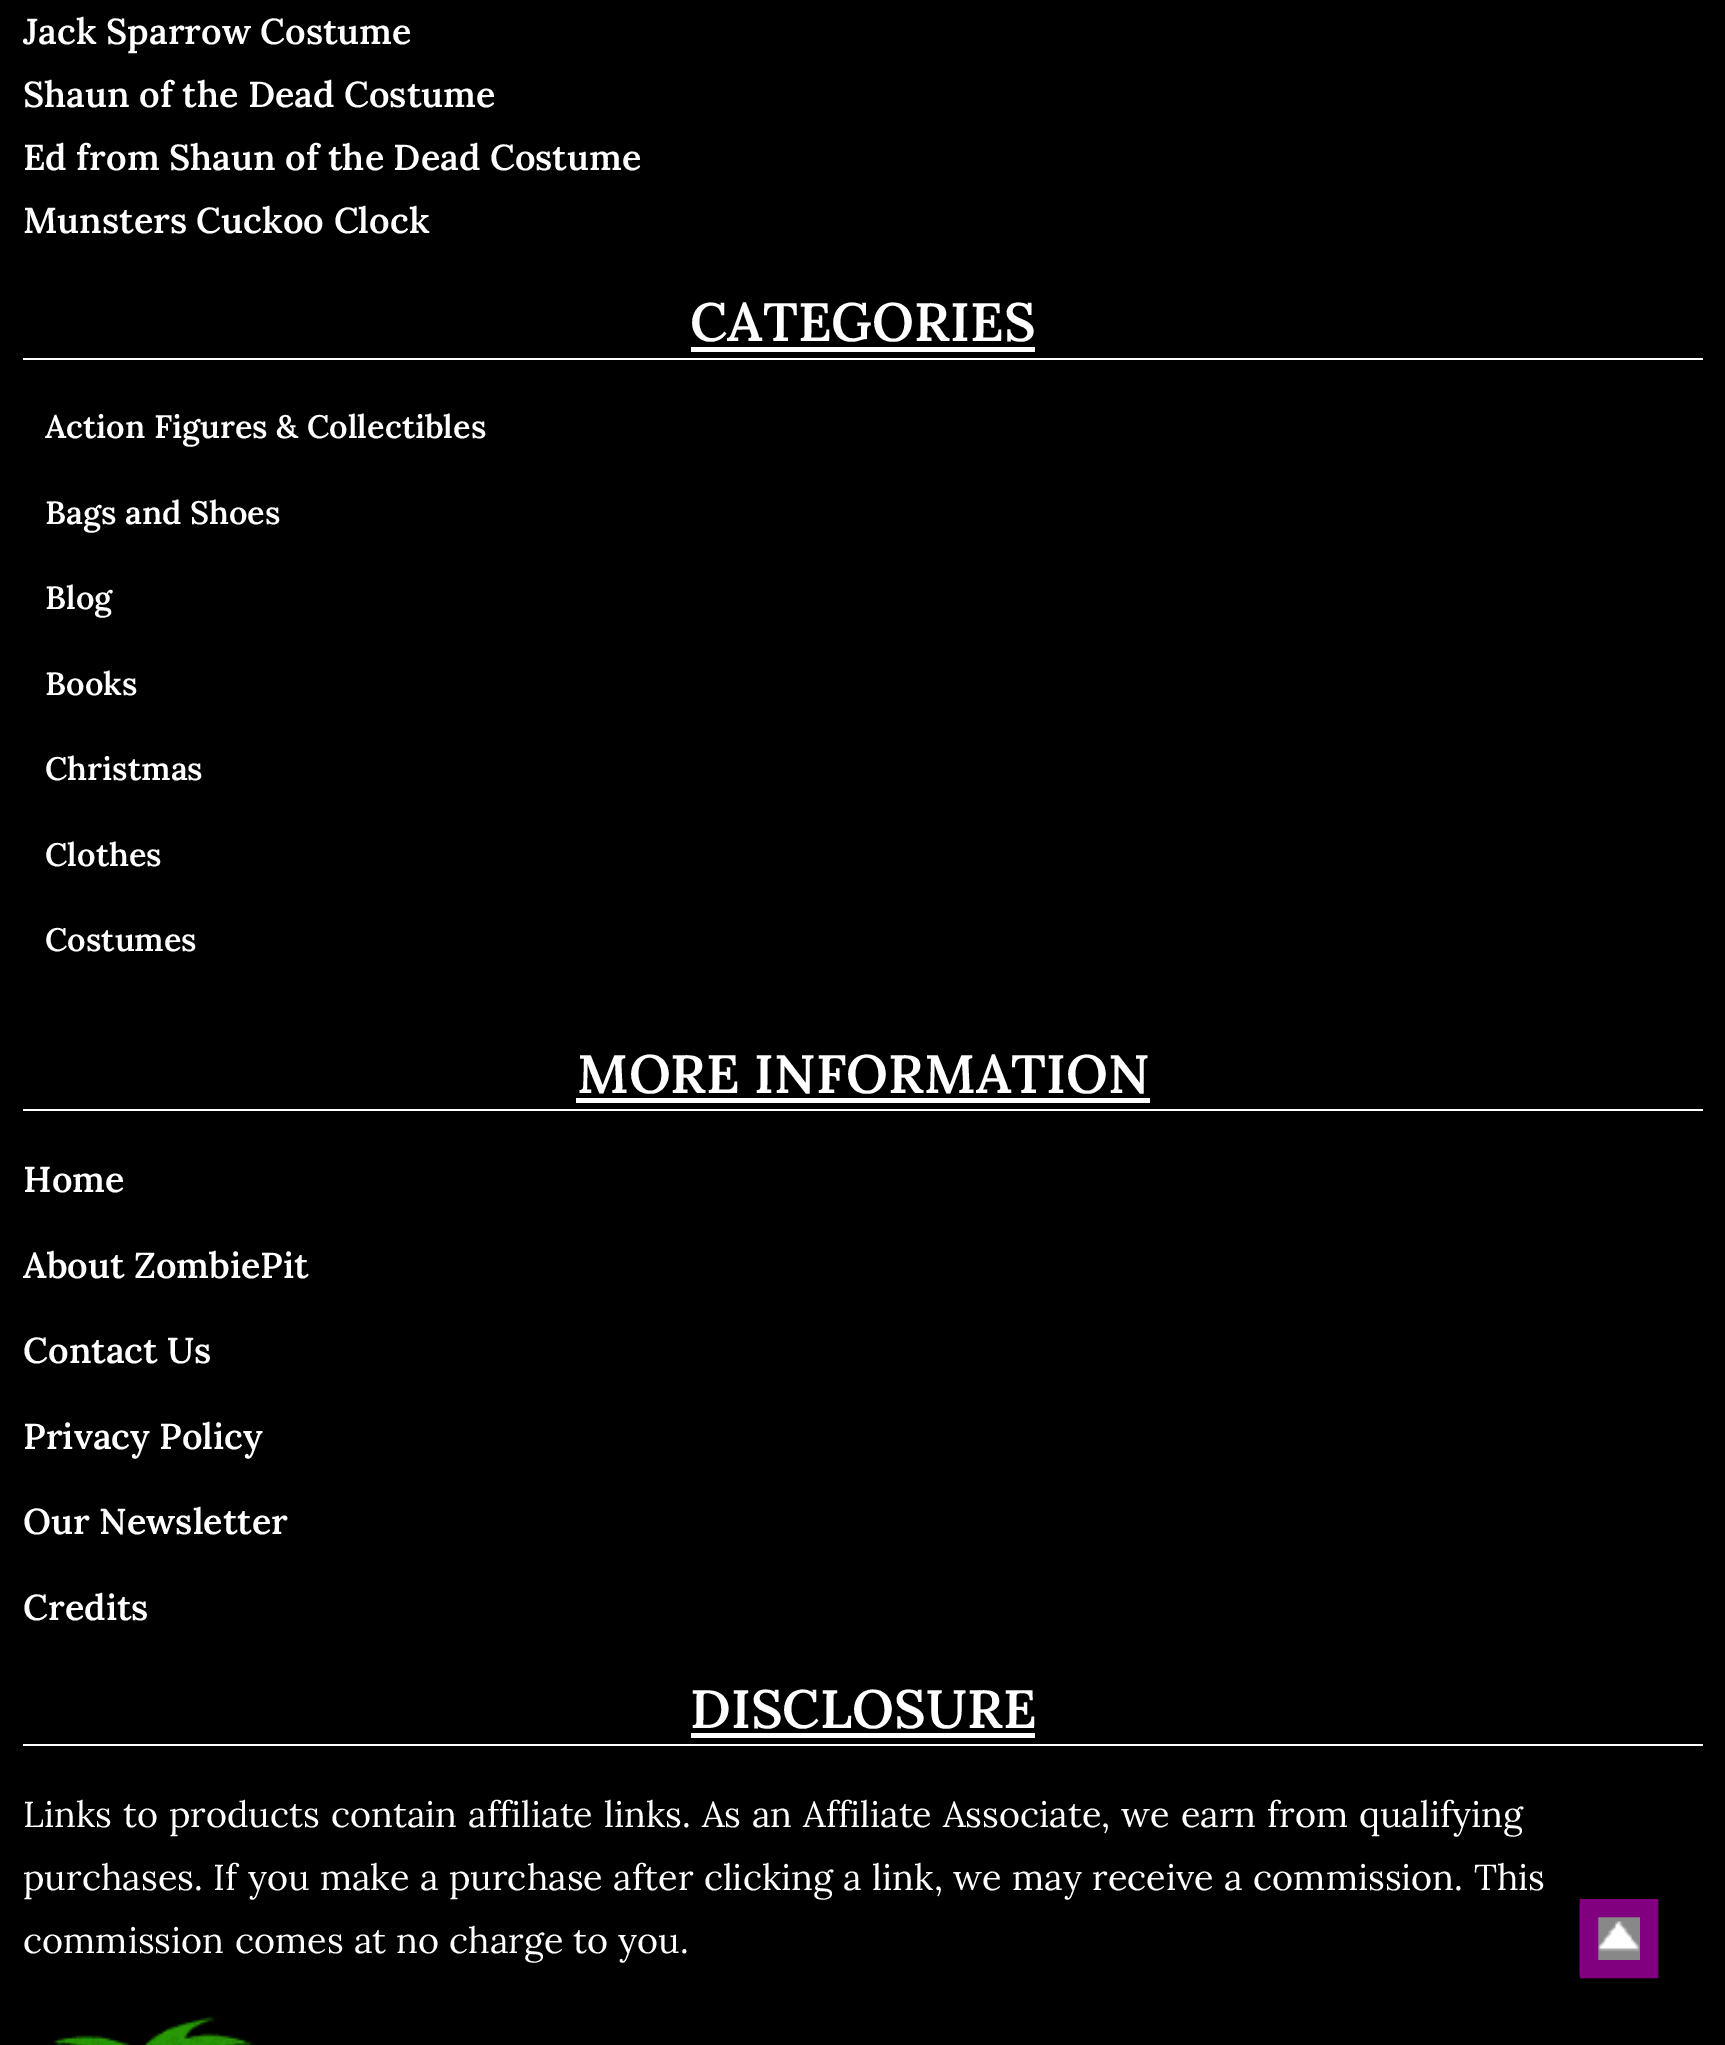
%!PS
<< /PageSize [1725 2045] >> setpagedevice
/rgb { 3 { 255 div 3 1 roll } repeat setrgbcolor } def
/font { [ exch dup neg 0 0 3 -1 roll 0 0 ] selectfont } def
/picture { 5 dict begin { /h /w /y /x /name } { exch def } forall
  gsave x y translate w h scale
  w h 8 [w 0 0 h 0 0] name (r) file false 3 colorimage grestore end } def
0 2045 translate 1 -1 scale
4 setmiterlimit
0 0 0 rgb
0 0 1725 2045 rectfill
[
  [23 358 1680 2 255 255 255]
  [691 347 344 5 255 255 255]
  [23 1109 1680 2 255 255 255]
  [576 1098 574 5 255 255 255]
  [23 1744 1680 2 255 255 255]
  [691 1733 344 5 255 255 255]
] { aload pop rgb rectfill } forall
(img/1.rgb) 53 2015 202 30 picture
1598 1917 42 43 rectfill
(img/2.rgb) 1579 1899 80 79 picture
128 0 128 rgb
18 setlinewidth
1589 1908 60 61 rectstroke
/Lora-SemiBold 36 font
255 255 255 rgb
[
  [(Jack Sparrow Costume) 23 44]
  [(Shaun of the Dead Costume) 23 107]
  [(Ed from Shaun of the Dead Costume) 23 170]
  [(Munsters Cuckoo Clock) 23 233]
] { aload pop moveto show } forall
/Lora-SemiBold 54 font
690 341 moveto (CATEGORIES) show
/Lora-SemiBold 32.4 font
[
  [(Action Figures & Collectibles) 45 438]
  [(Bags and Shoes) 45 524]
  [(Blog) 45 609]
  [(Books) 45 695]
  [(Christmas) 45 780]
  [(Clothes) 45 866]
  [(Costumes) 45 951]
] { aload pop moveto show } forall
/Lora-SemiBold 54 font
577 1093 moveto (MORE INFORMATION) show
/Lora-SemiBold 36 font
[
  [(Home) 23 1192]
  [(About ZombiePit) 23 1278]
  [(Contact Us) 23 1363]
  [(Privacy Policy) 23 1449]
  [(Our Newsletter) 23 1534]
  [(Credits) 23 1620]
] { aload pop moveto show } forall
/Lora-SemiBold 54 font
690 1728 moveto (DISCLOSURE) show
/Lora-Regular 36 font
23 1827 moveto 1.5 0 32 (Links to products contain affiliate links. As an Affiliate Associate, we earn from qualifying) widthshow
23 1890 moveto 1 0 32 (purchases. If you make a purchase after clicking a link, we may receive a commission. This) widthshow
23 1953 moveto (commission) show
235 1953 moveto 0.5 0 32 (comes at no charge to you.) widthshow
showpage
